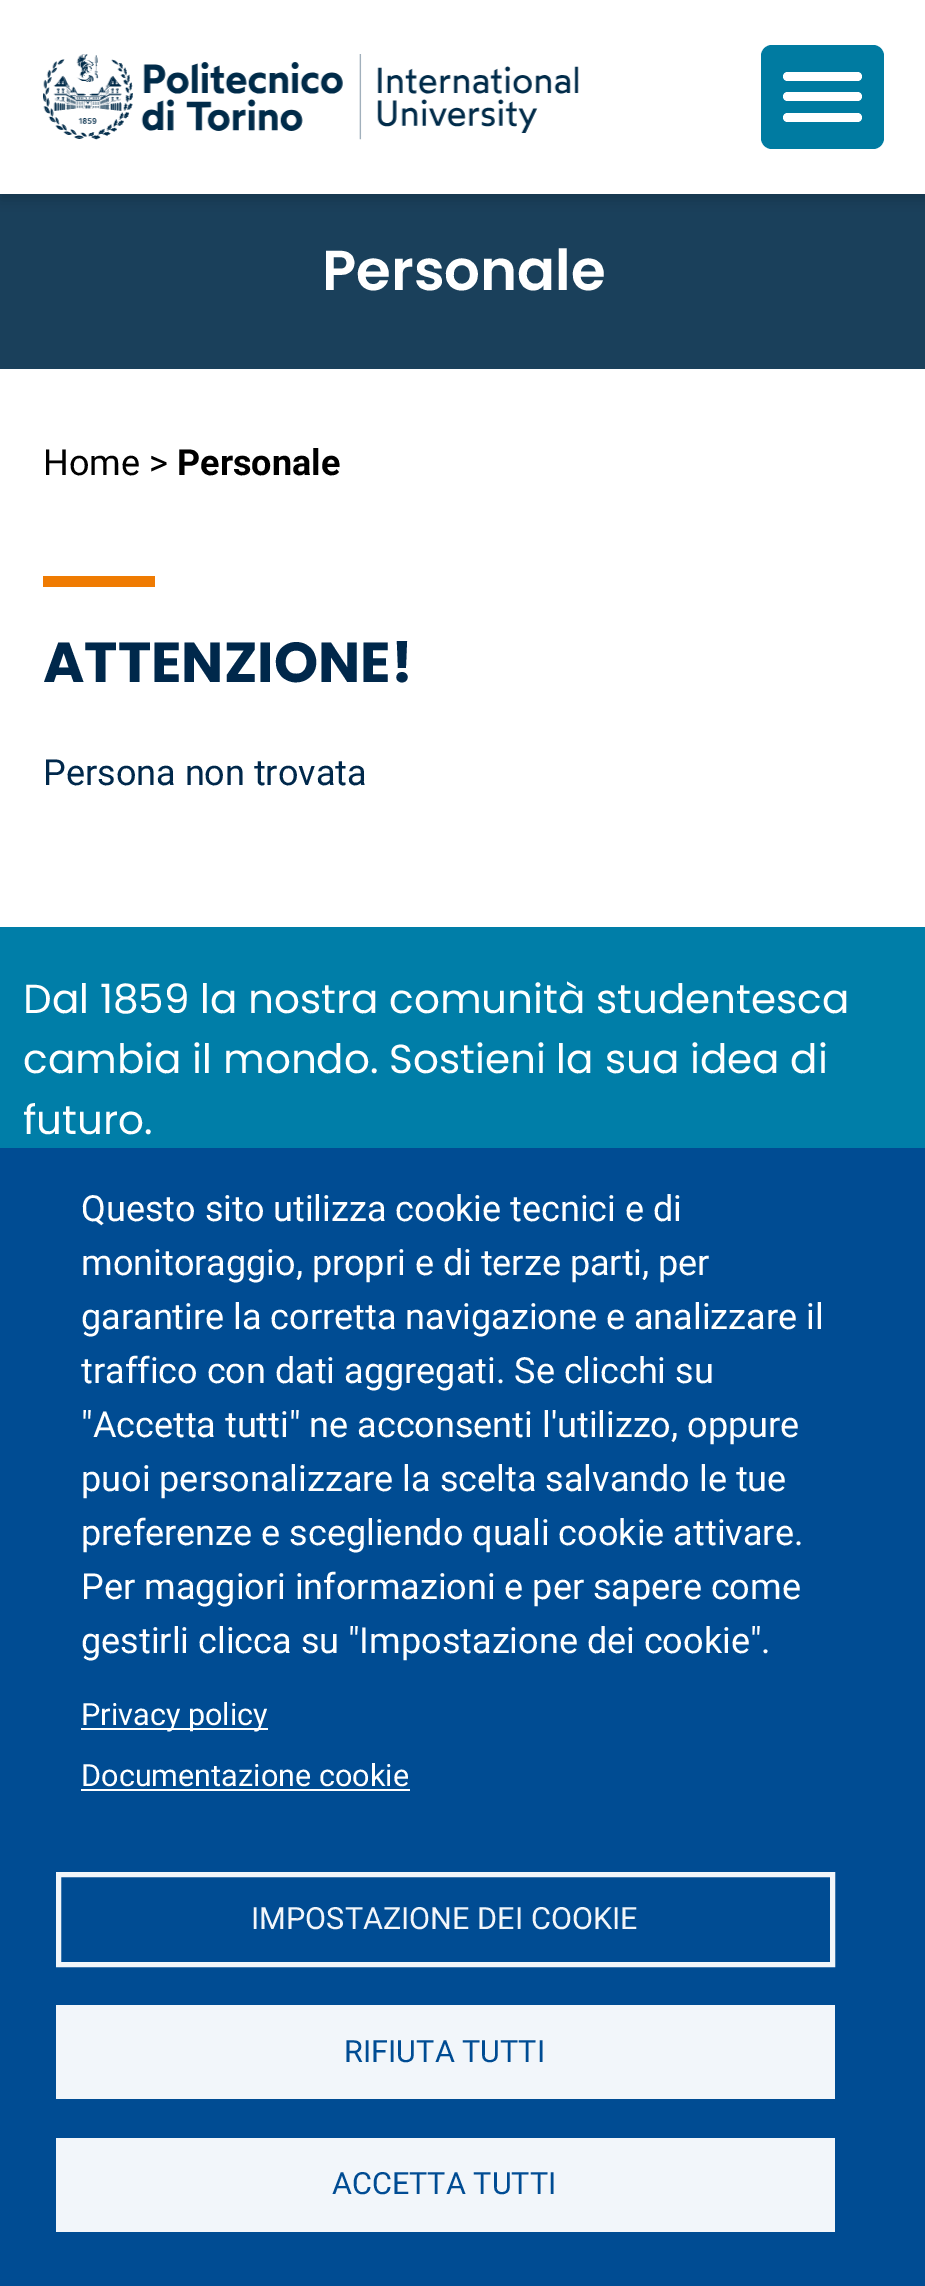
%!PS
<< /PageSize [925 2286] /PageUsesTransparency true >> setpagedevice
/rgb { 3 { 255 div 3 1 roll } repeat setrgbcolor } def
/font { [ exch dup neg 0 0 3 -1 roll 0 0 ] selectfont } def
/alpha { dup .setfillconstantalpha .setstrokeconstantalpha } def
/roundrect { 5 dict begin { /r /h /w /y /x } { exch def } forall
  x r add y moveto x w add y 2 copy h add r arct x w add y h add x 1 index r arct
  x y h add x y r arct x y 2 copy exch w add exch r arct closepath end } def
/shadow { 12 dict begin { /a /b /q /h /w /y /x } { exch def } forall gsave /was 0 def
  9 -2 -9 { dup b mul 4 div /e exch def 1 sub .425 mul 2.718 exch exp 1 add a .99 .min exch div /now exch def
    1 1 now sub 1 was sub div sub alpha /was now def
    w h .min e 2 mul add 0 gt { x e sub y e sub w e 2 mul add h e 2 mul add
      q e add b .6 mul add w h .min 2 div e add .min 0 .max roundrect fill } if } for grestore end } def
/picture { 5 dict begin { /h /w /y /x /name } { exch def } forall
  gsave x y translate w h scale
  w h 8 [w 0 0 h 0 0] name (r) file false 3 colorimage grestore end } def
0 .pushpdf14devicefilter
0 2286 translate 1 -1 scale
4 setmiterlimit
255 255 255 rgb
0 0 925 2286 rectfill
26 64 91 rgb
0 194 925 175 rectfill
0 0 0 rgb
0 7 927 193 0 7 0.16 shadow
255 255 255 rgb
0 0 925 194 rectfill
(img/1.rgb) 43 54 536 86 picture
0 123 161 rgb
761 45 123 104 11 roundrect fill
255 255 255 rgb
783 72 79 9 4.5 roundrect fill
783 92 79 9 4.5 roundrect fill
783 113 79 9 4.5 roundrect fill
[
  [43 576 112 11 239 123 2]
  [0 1148 925 1138 0 76 147]
  [81 1728 187 2 255 255 255]
  [81 1789 329 2 255 255 255]
] { aload pop rgb rectfill } forall
242 246 250 rgb
5 setlinewidth
58.5 1874.5 774 90 rectstroke
[
  [56 2005 779 94 242 246 250]
  [56 2138 779 94 242 246 250]
  [0 927 925 221 0 126 168]
] { aload pop rgb rectfill } forall
/Poppins-SemiBold 56.25 font
255 255 255 rgb
322 290 moveto (Personale) show
/Roboto-Regular 36 font
0 0 0 rgb
43 475 moveto (Home >) show
/Roboto-Bold 36 font
177 475 moveto (Personale) show
/Poppins-Bold 56.25 font
0 40 75 rgb
43 682 moveto (ATTENZIONE!) show
/Roboto-Regular 36 font
43 785 moveto (Persona non trovata) show
255 255 255 rgb
[
  [(Questo sito utilizza cookie tecnici e di) 81 1221]
  [(monitoraggio, propri e di terze parti, per) 81 1275]
  [(garantire la corretta navigazione e analizzare il) 81 1329]
  [(traffico con dati aggregati. Se clicchi su) 81 1383]
  [("Accetta tutti" ne acconsenti l'utilizzo, oppure) 81 1437]
  [(puoi personalizzare la scelta salvando le tue) 81 1491]
  [(preferenze e scegliendo quali cookie attivare.) 81 1545]
  [(Per maggiori informazioni e per sapere come) 81 1599]
  [(gestirli clicca su "Impostazione dei cookie".) 81 1653]
] { aload pop moveto show } forall
/Roboto-Regular 30.6 font
81 1725 moveto (Privacy policy) show
81 1786 moveto (Documentazione cookie) show
242 246 250 rgb
251 1929 moveto (IMPOSTAZIONE DEI COOKIE) show
0 76 147 rgb
344 2062 moveto (RIFIUTA TUTTI) show
332 2194 moveto (ACCETTA TUTTI) show
/Poppins-Regular 40.5 font
255 255 255 rgb
[
  [(Dal 1859 la nostra comunità studentesca) 23 1013]
  [(cambia il mondo. Sostieni la sua idea di) 23 1073]
  [(futuro.) 23 1134]
] { aload pop moveto show } forall
.poppdf14devicefilter showpage
